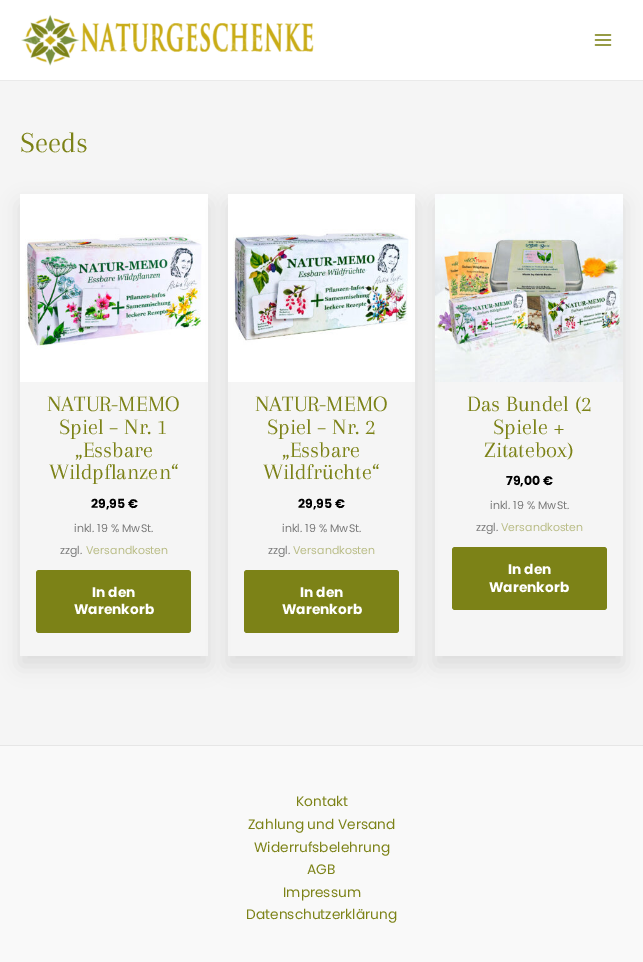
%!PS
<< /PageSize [643 962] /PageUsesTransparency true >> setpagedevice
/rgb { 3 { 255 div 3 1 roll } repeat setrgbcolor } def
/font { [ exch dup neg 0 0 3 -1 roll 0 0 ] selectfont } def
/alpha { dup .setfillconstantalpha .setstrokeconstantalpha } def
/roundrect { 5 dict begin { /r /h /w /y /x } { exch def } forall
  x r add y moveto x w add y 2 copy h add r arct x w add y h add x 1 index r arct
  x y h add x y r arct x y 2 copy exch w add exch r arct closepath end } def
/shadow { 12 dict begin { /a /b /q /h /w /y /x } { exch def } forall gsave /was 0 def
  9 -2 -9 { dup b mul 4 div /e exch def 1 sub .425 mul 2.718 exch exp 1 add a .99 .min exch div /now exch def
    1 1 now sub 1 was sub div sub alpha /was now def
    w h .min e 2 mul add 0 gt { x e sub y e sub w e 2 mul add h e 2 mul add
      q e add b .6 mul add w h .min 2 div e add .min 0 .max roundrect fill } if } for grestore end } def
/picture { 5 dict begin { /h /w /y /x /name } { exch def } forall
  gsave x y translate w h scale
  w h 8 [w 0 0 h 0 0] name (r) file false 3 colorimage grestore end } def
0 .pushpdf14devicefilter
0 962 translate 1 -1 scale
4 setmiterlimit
245 245 245 rgb
0 0 643 962 rectfill
255 255 255 rgb
0 0 643 80 rectfill
234 234 234 rgb
0 80 643 1 rectfill
(img/1.rgb) 21 14 293 52 picture
(img/2.rgb) 594 34 18 12 picture
gsave
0 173 moveto 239 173 lineto 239 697 lineto 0 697 lineto closepath 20 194 moveto 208 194 lineto 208 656 lineto 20 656 lineto closepath eoclip newpath
0 0 0 rgb
20 204 188 462 0 10 0.1 shadow
grestore
(img/3.rgb) 20 194 188 188 picture
124 130 23 rgb
36 570 155 63 3 roundrect fill
gsave
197 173 moveto 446 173 lineto 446 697 lineto 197 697 lineto closepath 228 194 moveto 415 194 lineto 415 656 lineto 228 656 lineto closepath eoclip newpath
0 0 0 rgb
228 204 187 462 0 10 0.1 shadow
grestore
(img/4.rgb) 228 194 187 188 picture
244 570 155 63 3 roundrect fill
gsave
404 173 moveto 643 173 lineto 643 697 lineto 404 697 lineto closepath 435 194 moveto 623 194 lineto 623 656 lineto 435 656 lineto closepath eoclip newpath
0 0 0 rgb
435 204 188 462 0 10 0.1 shadow
grestore
(img/5.rgb) 435 194 188 188 picture
452 547 155 63 3 roundrect fill
249 249 249 rgb
0 746 643 216 rectfill
230 230 230 rgb
0 745 643 1 rectfill
/Arapey-Regular 30 font
124 130 23 rgb
20 152 moveto (Seeds) show
/Arapey-Regular 22.75 font
[
  [(NATUR-MEMO) 47 411]
  [(Spiel – Nr. 1) 59 434]
  [(„Essbare) 75 457]
  [(Wildpflanzen“) 49 479]
] { aload pop moveto show } forall
/Poppins-Bold 12.5 font
0 0 0 rgb
91 508 moveto (29,95 €) show
/Poppins-Regular 11 font
123 123 123 rgb
74 532 moveto (inkl. 19 % MwSt.) show
60 554 moveto (zzgl.) show
185 188 134 rgb
86 554 moveto (Versandkosten) show
/Poppins-Bold 13.75 font
255 255 255 rgb
92 597 moveto (In den) show
74 614 moveto (Warenkorb) show
/Arapey-Regular 22.75 font
124 130 23 rgb
[
  [(NATUR-MEMO) 255 411]
  [(Spiel – Nr. 2) 267 434]
  [(„Essbare) 282 457]
  [(Wildfrüchte“) 263 479]
] { aload pop moveto show } forall
/Poppins-Bold 12.5 font
0 0 0 rgb
298 508 moveto (29,95 €) show
/Poppins-Regular 11 font
123 123 123 rgb
282 532 moveto (inkl. 19 % MwSt.) show
268 554 moveto (zzgl.) show
185 188 134 rgb
293 554 moveto (Versandkosten) show
/Poppins-Bold 13.75 font
255 255 255 rgb
300 597 moveto (In den) show
282 614 moveto (Warenkorb) show
/Arapey-Regular 22.75 font
124 130 23 rgb
[
  [(Das Bundel \(2) 467 411]
  [(Spiele +) 493 434]
  [(Zitatebox\)) 484 457]
] { aload pop moveto show } forall
/Poppins-Bold 12.5 font
0 0 0 rgb
506 485 moveto (79,00 €) show
/Poppins-Regular 11 font
123 123 123 rgb
490 509 moveto (inkl. 19 % MwSt.) show
476 531 moveto (zzgl.) show
185 188 134 rgb
501 531 moveto (Versandkosten) show
/Poppins-Bold 13.75 font
255 255 255 rgb
508 574 moveto (In den) show
489 592 moveto (Warenkorb) show
/Poppins-Regular 13.75 font
124 130 23 rgb
[
  [(Kontakt) 296 806]
  [(Zahlung und Versand) 248 829]
  [(Widerrufsbelehrung) 254 852]
  [(AGB) 307 874]
  [(Impressum) 283 897]
  [(Datenschutzerklärung) 246 919]
] { aload pop moveto show } forall
.poppdf14devicefilter showpage
